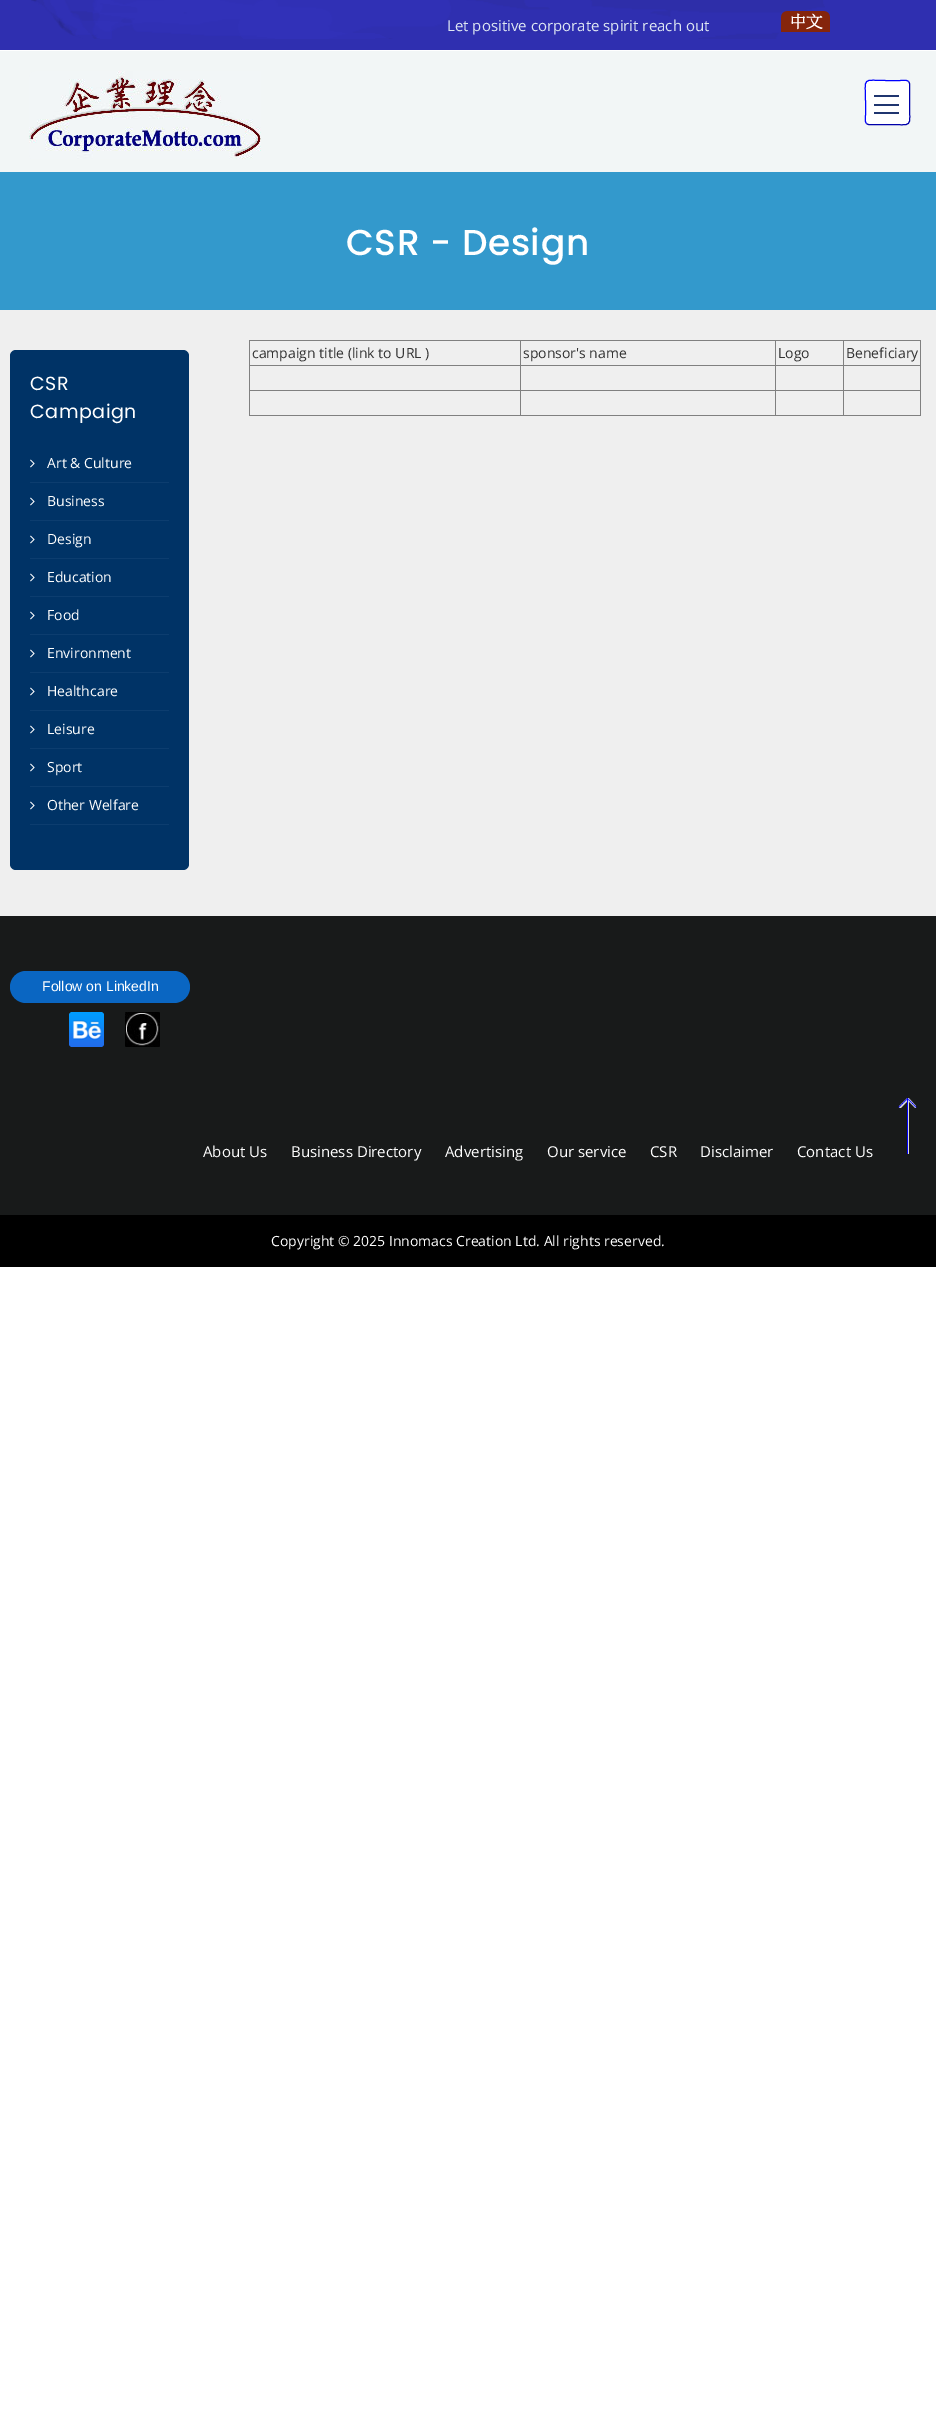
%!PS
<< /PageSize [936 2432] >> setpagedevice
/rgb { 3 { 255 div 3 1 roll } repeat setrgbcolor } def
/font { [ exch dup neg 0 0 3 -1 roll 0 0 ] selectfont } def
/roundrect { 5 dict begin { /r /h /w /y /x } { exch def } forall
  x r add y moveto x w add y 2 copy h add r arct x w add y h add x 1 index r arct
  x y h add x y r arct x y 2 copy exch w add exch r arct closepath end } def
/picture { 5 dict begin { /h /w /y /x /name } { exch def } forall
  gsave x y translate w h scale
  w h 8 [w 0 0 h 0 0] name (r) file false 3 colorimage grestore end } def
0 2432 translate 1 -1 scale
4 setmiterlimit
255 255 255 rgb
0 0 936 2432 rectfill
47 47 176 rgb
0 0 936 50 rectfill
(img/1.rgb) 31 0 794 39 picture
(img/2.rgb) 781 11 49 21 picture
242 246 246 rgb
0 51 936 121 rectfill
(img/3.rgb) 29 71 232 88 picture
255 255 255 rgb
865 80 45 45 4 roundrect fill
0 0 170 rgb
908.5 81.5 moveto 910.5 83.5 909.5 88.5 909.5 90 curveto 909.5 102.5 lineto 909.5 129 914 124.5 887.5 124.5 curveto 875 124.5 lineto 873.5 124.5 868.5 125.5 866.5 123.5 curveto stroke
0 0 255 rgb
866.5 123.5 moveto 864.5 121.5 865.5 116.5 865.5 115 curveto 865.5 102.5 lineto 865.5 76 861 80.5 887.5 80.5 curveto 900 80.5 lineto 901.5 80.5 906.5 79.5 908.5 81.5 curveto stroke
[
  [874 95 25 2 31 53 111]
  [874 104 25 2 31 53 111]
  [874 112 25 2 31 53 111]
  [0 172 936 138 51 153 204]
  [0 310 936 606 239 239 239]
  [249 340 672 1 128 128 128]
  [920 340 1 76 128 128 128]
  [249 415 672 1 128 128 128]
  [249 340 1 76 128 128 128]
  [843 365 78 1 128 128 128]
  [843 390 78 1 128 128 128]
  [843 390 1 26 128 128 128]
  [775 390 69 1 128 128 128]
  [843 365 1 26 128 128 128]
  [775 365 69 1 128 128 128]
  [775 390 1 26 128 128 128]
  [520 390 256 1 128 128 128]
  [775 365 1 26 128 128 128]
  [520 365 256 1 128 128 128]
  [520 390 1 26 128 128 128]
  [249 390 272 1 128 128 128]
  [520 365 1 26 128 128 128]
  [249 365 272 1 128 128 128]
  [520 340 1 26 128 128 128]
  [775 340 1 26 128 128 128]
  [843 340 1 26 128 128 128]
] { aload pop rgb rectfill } forall
0 51 102 rgb
10 350 179 520 6 roundrect fill
12 61 111 rgb
30 482 139 1 rectfill
(img/4.rgb) 30 459 5 9 picture
30 520 139 1 rectfill
(img/4.rgb) 30 497 5 9 picture
30 558 139 1 rectfill
(img/4.rgb) 30 535 5 9 picture
30 596 139 1 rectfill
(img/4.rgb) 30 573 5 9 picture
30 634 139 1 rectfill
(img/4.rgb) 30 611 5 9 picture
30 672 139 1 rectfill
(img/4.rgb) 30 649 5 9 picture
30 710 139 1 rectfill
(img/4.rgb) 30 687 5 9 picture
30 748 139 1 rectfill
(img/4.rgb) 30 725 5 9 picture
30 786 139 1 rectfill
(img/4.rgb) 30 763 5 9 picture
30 824 139 1 rectfill
(img/4.rgb) 30 801 5 9 picture
24 26 26 rgb
0 916 936 299 rectfill
10 102 194 rgb
10 971 180 32 16 roundrect fill
(img/5.rgb) 69 1012 35 35 picture
(img/6.rgb) 125 1012 35 35 picture
(img/7.rgb) 898 1098 19 56 picture
0 0 0 rgb
0 1215 936 52 rectfill
/OpenSans-Regular 15 font
222 231 243 rgb
447 31 moveto (Let positive corporate spirit reach out) show
/Poppins-Medium 36 font
255 255 255 rgb
346 255 moveto 0.6 0 (CSR - Design) ashow
/OpenSans-Regular 14 font
51 51 51 rgb
[
  [(campaign title \(link to URL \)) 252 358]
  [(sponsor's name) 523 358]
  [(Logo) 778 358]
  [(Beneficiary) 846 358]
] { aload pop moveto show } forall
/Poppins-Regular 19 font
255 255 255 rgb
30 390 moveto 0.6 0 (CSR) ashow
30 418 moveto 0.6 0 (Campaign) ashow
/OpenSans-Regular 14 font
[
  [(Art & Culture) 47 468]
  [(Business) 47 506]
  [(Design) 47 544]
  [(Education) 47 582]
  [(Food) 47 620]
  [(Environment) 47 658]
  [(Healthcare) 47 696]
  [(Leisure) 47 734]
  [(Sport) 47 772]
  [(Other Welfare) 47 810]
] { aload pop moveto show } forall
/LiberationSans-Regular 14 font
42 991 moveto (Follow on LinkedIn) show
/OpenSans-Regular 15 font
[
  [(About Us) 203 1157]
  [(Business Directory) 291 1157]
  [(Advertising) 445 1157]
  [(Our service) 547 1157]
  [(CSR) 650 1157]
  [(Disclaimer) 700 1157]
  [(Contact Us) 797 1157]
] { aload pop moveto show } forall
/OpenSans-Regular 14 font
271 1246 moveto (Copyright © 2025 Innomacs Creation Ltd. All rights reserved.) show
showpage
